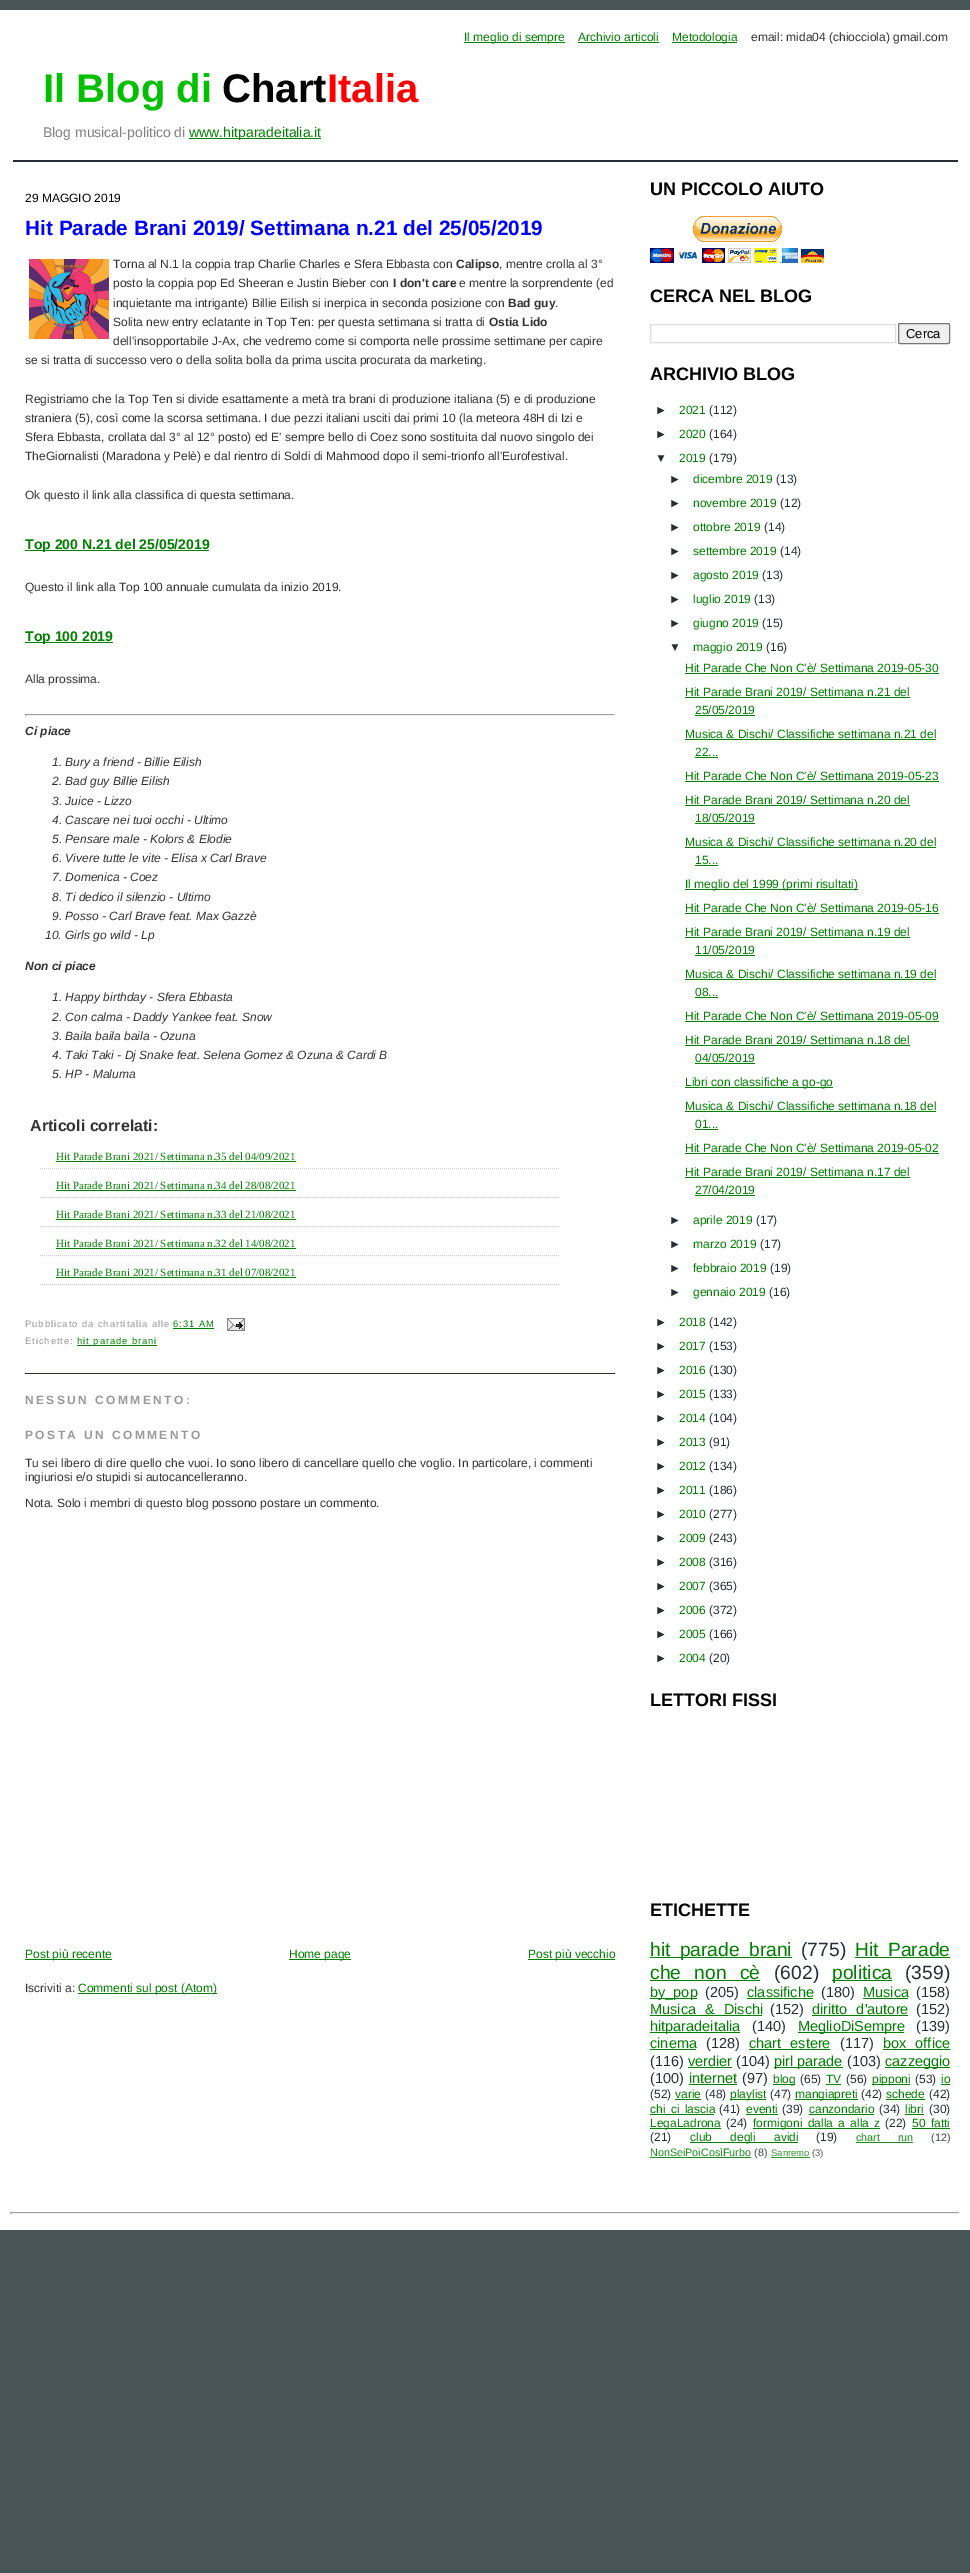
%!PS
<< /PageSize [970 2573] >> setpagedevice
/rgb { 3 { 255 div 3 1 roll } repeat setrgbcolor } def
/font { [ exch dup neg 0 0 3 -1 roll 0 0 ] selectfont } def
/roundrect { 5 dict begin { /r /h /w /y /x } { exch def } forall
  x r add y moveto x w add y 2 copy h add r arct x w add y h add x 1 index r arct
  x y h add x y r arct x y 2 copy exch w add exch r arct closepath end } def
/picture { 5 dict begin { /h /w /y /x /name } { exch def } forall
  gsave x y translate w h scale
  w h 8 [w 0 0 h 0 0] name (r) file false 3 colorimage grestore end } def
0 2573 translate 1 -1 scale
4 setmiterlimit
72 85 88 rgb
0 0 970 2573 rectfill
[
  [0 10 970 2220 255 255 255]
  [13 160 945 2 39 45 54]
  [464 42 101 1 0 128 0]
  [578 42 81 1 0 128 0]
  [672 42 65 1 0 128 0]
  [189 138 132 1 0 128 0]
  [25 1373 590 1 39 45 54]
] { aload pop rgb rectfill } forall
(img/1.rgb) 29 259 80 80 picture
[
  [25 550 184 1 0 128 0]
  [25 642 88 1 0 128 0]
  [25 714 590 1 159 159 159]
  [614 714 1 2 238 238 238]
  [25 715 590 1 238 238 238]
  [25 714 1 2 159 159 159]
] { aload pop rgb rectfill } forall
204 204 204 rgb
[1 1] 0 setdash
40 1168.5 moveto 560 1168.5 lineto stroke
0 128 0 rgb
56 1161 240 1 rectfill
204 204 204 rgb
40 1197.5 moveto 560 1197.5 lineto stroke
0 128 0 rgb
56 1190 240 1 rectfill
204 204 204 rgb
40 1226.5 moveto 560 1226.5 lineto stroke
0 128 0 rgb
56 1219 240 1 rectfill
204 204 204 rgb
40 1255.5 moveto 560 1255.5 lineto stroke
0 128 0 rgb
56 1248 240 1 rectfill
204 204 204 rgb
40 1284.5 moveto 560 1284.5 lineto stroke
0 128 0 rgb
56 1277 240 1 rectfill
173 1328 41 1 rectfill
(img/2.rgb) 227 1318 18 13 picture
[
  [77 1345 80 1 0 128 0]
  [25 1959 87 1 0 128 0]
  [289 1959 62 1 0 128 0]
  [528 1959 87 1 0 128 0]
  [78 1993 139 1 0 128 0]
] { aload pop rgb rectfill } forall
(img/3.rgb) 650 216 174 47 picture
221 221 221 rgb
[] 0 setdash
650.5 324.5 245 18 rectstroke
239 239 239 rgb
898.5 323.5 51 20 1.5 roundrect gsave fill grestore
118 118 118 rgb
stroke
[
  [685 673 254 1 0 128 0]
  [685 697 225 1 0 128 0]
  [695 715 60 1 0 128 0]
  [685 739 251 1 0 128 0]
  [695 757 23 1 0 128 0]
  [685 781 254 1 0 128 0]
  [685 805 225 1 0 128 0]
  [695 823 60 1 0 128 0]
  [685 847 251 1 0 128 0]
  [695 865 23 1 0 128 0]
  [685 889 173 1 0 128 0]
  [685 913 254 1 0 128 0]
  [685 937 225 1 0 128 0]
  [695 955 60 1 0 128 0]
  [685 979 251 1 0 128 0]
  [695 997 23 1 0 128 0]
  [685 1021 254 1 0 128 0]
  [685 1045 225 1 0 128 0]
  [695 1063 60 1 0 128 0]
  [685 1087 148 1 0 128 0]
  [685 1111 251 1 0 128 0]
  [695 1129 23 1 0 128 0]
  [685 1153 254 1 0 128 0]
  [685 1177 225 1 0 128 0]
  [695 1195 60 1 0 128 0]
  [650 1957 142 1 0 128 0]
  [855 1957 95 1 0 128 0]
  [650 1980 110 1 0 128 0]
  [832 1980 60 1 0 128 0]
  [650 1998 47 1 0 128 0]
  [747 1998 66 1 0 128 0]
  [863 1998 45 1 0 128 0]
  [650 2015 112 1 0 128 0]
  [812 2015 96 1 0 128 0]
  [650 2032 90 1 0 128 0]
  [798 2032 106 1 0 128 0]
  [650 2049 46 1 0 128 0]
  [749 2049 81 1 0 128 0]
  [883 2049 67 1 0 128 0]
  [688 2067 44 1 0 128 0]
  [774 2067 69 1 0 128 0]
  [885 2067 65 1 0 128 0]
  [689 2084 48 1 0 128 0]
  [773 2084 22 1 0 128 0]
  [826 2084 15 1 0 128 0]
  [872 2084 38 1 0 128 0]
  [941 2084 9 1 0 128 0]
  [675 2099 26 1 0 128 0]
  [730 2099 36 1 0 128 0]
  [795 2099 63 1 0 128 0]
  [886 2099 39 1 0 128 0]
  [650 2114 64 1 0 128 0]
  [746 2114 32 1 0 128 0]
  [809 2114 65 1 0 128 0]
  [905 2114 19 1 0 128 0]
  [650 2128 71 1 0 128 0]
  [753 2128 127 1 0 128 0]
  [912 2128 38 1 0 128 0]
  [690 2142 108 1 0 128 0]
  [856 2142 57 1 26 141 26]
  [650 2157 101 1 26 141 26]
  [771 2157 39 1 51 153 51]
  [10 2212 950 1 159 159 159]
  [959 2212 1 2 238 238 238]
  [10 2213 950 1 238 238 238]
  [10 2212 1 2 159 159 159]
] { aload pop rgb rectfill } forall
/LiberationSans-Regular 12 font
0 128 0 rgb
[
  [(Il meglio di sempre) 464 41]
  [(Archivio articoli) 578 41]
  [(Metodologia) 672 41]
] { aload pop moveto show } forall
51 51 51 rgb
751 41 moveto (email: mida04 \(chiocciola\) gmail.com) show
/LiberationSans-Bold 40 font
0 192 0 rgb
43 102 moveto (Il Blog di) show
0 0 0 rgb
222 102 moveto (Chart) show
255 0 0 rgb
327 102 moveto (Italia) show
/LiberationSans-Regular 14 font
128 128 128 rgb
43 137 moveto (Blog musical-politico di) show
0 128 0 rgb
189 137 moveto (www.hitparadeitalia.it) show
/LiberationSans-Regular 12 font
0 0 0 rgb
25 202 moveto (29 MAGGIO 2019) show
/LiberationSans-Bold 20.8 font
0 0 255 rgb
25 235 moveto (Hit Parade Brani 2019/ Settimana n.21 del 25/05/2019) show
/LiberationSans-Regular 12 font
51 51 51 rgb
113 268 moveto (Torna al N.1 la coppia trap Charlie Charles e Sfera Ebbasta con) show
/LiberationSans-Bold 12 font
456 268 moveto (Calipso) show
/LiberationSans-Regular 12 font
499 268 moveto (, mentre crolla al 3°) show
113 287 moveto (posto la coppia pop Ed Sheeran e Justin Bieber con) show
/LiberationSans-Bold 12 font
393 287 moveto (I don't care) show
/LiberationSans-Regular 12 font
459 287 moveto (e mentre la sorprendente \(ed) show
113 307 moveto (inquietante ma intrigante\) Billie Eilish si inerpica in seconda posizione con) show
/LiberationSans-Bold 12 font
508 307 moveto (Bad guy) show
/LiberationSans-Regular 12 font
555 307 moveto (.) show
113 326 moveto (Solita new entry eclatante in Top Ten: per questa settimana si tratta di) show
/LiberationSans-Bold 12 font
489 326 moveto (Ostia Lido) show
/LiberationSans-Regular 12 font
[
  [(dell'insopportabile J-Ax, che vedremo come si comporta nelle prossime settimane per capire) 113 345]
  [(se si tratta di successo vero o della solita bolla da prima uscita procurata da marketing.) 25 364]
  [(Registriamo che la Top Ten si divide esattamente a metà tra brani di produzione italiana \(5\) e di produzione) 25 403]
  [(straniera \(5\), così come la scorsa settimana. I due pezzi italiani usciti dai primi 10 \(la meteora 48H di Izi e) 25 422]
  [(Sfera Ebbasta, crollata dal 3° al 12° posto\) ed E' sempre bello di Coez sono sostituita dal nuovo singolo dei) 25 441]
  [(TheGiornalisti \(Maradona y Pelè\) e dal rientro di Soldi di Mahmood dopo il semi-trionfo all'Eurofestival.) 25 460]
  [(Ok questo il link alla classifica di questa settimana.) 25 499]
] { aload pop moveto show } forall
/LiberationSans-Bold 14 font
0 128 0 rgb
25 549 moveto (Top 200 N.21 del 25/05/2019) show
/LiberationSans-Regular 12 font
51 51 51 rgb
25 591 moveto (Questo il link alla Top 100 annuale cumulata da inizio 2019.) show
/LiberationSans-Bold 14 font
0 128 0 rgb
25 641 moveto (Top 100 2019) show
/LiberationSans-Regular 12 font
51 51 51 rgb
25 683 moveto (Alla prossima.) show
/LiberationSans-BoldItalic 12 font
25 735 moveto (Ci piace) show
/LiberationSans-Italic 12 font
[
  [(1. Bury a friend - Billie Eilish) 52 766]
  [(2. Bad guy Billie Eilish) 52 785]
  [(3. Juice - Lizzo) 52 805]
  [(4. Cascare nei tuoi occhi - Ultimo) 52 824]
  [(5. Pensare male - Kolors & Elodie) 52 843]
  [(6. Vivere tutte le vite - Elisa x Carl Brave) 52 862]
  [(7. Domenica - Coez) 52 881]
  [(8. Ti dedico il silenzio - Ultimo) 52 901]
  [(9. Posso - Carl Brave feat. Max Gazzè) 52 920]
  [(10. Girls go wild - Lp) 45 939]
] { aload pop moveto show } forall
/LiberationSans-BoldItalic 12 font
25 970 moveto (Non ci piace) show
/LiberationSans-Italic 12 font
[
  [(1. Happy birthday - Sfera Ebbasta) 52 1001]
  [(2. Con calma - Daddy Yankee feat. Snow) 52 1021]
  [(3. Baila baila baila - Ozuna) 52 1040]
  [(4. Taki Taki - Dj Snake feat. Selena Gomez & Ozuna & Cardi B) 52 1059]
  [(5. HP - Maluma) 52 1078]
] { aload pop moveto show } forall
/LiberationSans-Bold 16 font
30 1131 moveto (Articoli correlati:) show
/LiberationSerif-Regular 11 font
0 128 0 rgb
[
  [(Hit Parade Brani 2021/ Settimana n.35 del 04/09/2021) 56 1160]
  [(Hit Parade Brani 2021/ Settimana n.34 del 28/08/2021) 56 1189]
  [(Hit Parade Brani 2021/ Settimana n.33 del 21/08/2021) 56 1218]
  [(Hit Parade Brani 2021/ Settimana n.32 del 14/08/2021) 56 1247]
  [(Hit Parade Brani 2021/ Settimana n.31 del 07/08/2021) 56 1276]
] { aload pop moveto show } forall
/LiberationSans-Regular 9.4 font
153 153 153 rgb
25 1327 moveto 0.95 0 (Pubblicato da chartitalia alle) ashow
0 128 0 rgb
173 1327 moveto 0.95 0 (6:31 AM) ashow
153 153 153 rgb
25 1344 moveto 0.95 0 (Etichette:) ashow
0 128 0 rgb
77 1344 moveto 0.95 0 (hit parade brani) ashow
/LiberationSans-Bold 12 font
153 153 153 rgb
25 1404 moveto 2.4 0 (NESSUN COMMENTO:) ashow
25 1439 moveto 2.4 0 (POSTA UN COMMENTO) ashow
/LiberationSans-Regular 12 font
51 51 51 rgb
[
  [(Tu sei libero di dire quello che vuoi. Io sono libero di cancellare quello che voglio. In particolare, i commenti) 25 1467]
  [(ingiuriosi e/o stupidi si autocancelleranno.) 25 1481]
  [(Nota. Solo i membri di questo blog possono postare un commento.) 25 1507]
] { aload pop moveto show } forall
0 128 0 rgb
[
  [(Post più recente) 25 1958]
  [(Home page) 289 1958]
  [(Post più vecchio) 528 1958]
] { aload pop moveto show } forall
51 51 51 rgb
25 1992 moveto (Iscriviti a:) show
0 128 0 rgb
78 1992 moveto (Commenti sul post \(Atom\)) show
/LiberationSans-Bold 18 font
0 0 0 rgb
650 195 moveto (UN PICCOLO AIUTO) show
650 302 moveto (CERCA NEL BLOG) show
/LiberationSans-Regular 13 font
906 338 moveto (Cerca) show
/LiberationSans-Bold 18 font
650 380 moveto (ARCHIVIO BLOG) show
/LiberationSans-Regular 12 font
39 45 54 rgb
655 414 moveto (►) show
0 128 0 rgb
679 414 moveto (2021) show
39 45 54 rgb
709 414 moveto (\(112\)) show
655 438 moveto (►) show
0 128 0 rgb
679 438 moveto (2020) show
39 45 54 rgb
709 438 moveto (\(164\)) show
655 462 moveto (▼) show
0 128 0 rgb
679 462 moveto (2019) show
39 45 54 rgb
709 462 moveto (\(179\)) show
669 483 moveto (►) show
0 128 0 rgb
693 483 moveto (dicembre 2019) show
39 45 54 rgb
776 483 moveto (\(13\)) show
669 507 moveto (►) show
0 128 0 rgb
693 507 moveto (novembre 2019) show
39 45 54 rgb
780 507 moveto (\(12\)) show
669 531 moveto (►) show
0 128 0 rgb
693 531 moveto (ottobre 2019) show
39 45 54 rgb
764 531 moveto (\(14\)) show
669 555 moveto (►) show
0 128 0 rgb
693 555 moveto (settembre 2019) show
39 45 54 rgb
780 555 moveto (\(14\)) show
669 579 moveto (►) show
0 128 0 rgb
693 579 moveto (agosto 2019) show
39 45 54 rgb
762 579 moveto (\(13\)) show
669 603 moveto (►) show
0 128 0 rgb
693 603 moveto (luglio 2019) show
39 45 54 rgb
754 603 moveto (\(13\)) show
669 627 moveto (►) show
0 128 0 rgb
693 627 moveto (giugno 2019) show
39 45 54 rgb
762 627 moveto (\(15\)) show
669 651 moveto (▼) show
0 128 0 rgb
693 651 moveto (maggio 2019) show
39 45 54 rgb
766 651 moveto (\(16\)) show
0 128 0 rgb
[
  [(Hit Parade Che Non C'è/ Settimana 2019-05-30) 685 672]
  [(Hit Parade Brani 2019/ Settimana n.21 del) 685 696]
  [(25/05/2019) 695 714]
  [(Musica & Dischi/ Classifiche settimana n.21 del) 685 738]
  [(22...) 695 756]
  [(Hit Parade Che Non C'è/ Settimana 2019-05-23) 685 780]
  [(Hit Parade Brani 2019/ Settimana n.20 del) 685 804]
  [(18/05/2019) 695 822]
  [(Musica & Dischi/ Classifiche settimana n.20 del) 685 846]
  [(15...) 695 864]
  [(Il meglio del 1999 \(primi risultati\)) 685 888]
  [(Hit Parade Che Non C'è/ Settimana 2019-05-16) 685 912]
  [(Hit Parade Brani 2019/ Settimana n.19 del) 685 936]
  [(11/05/2019) 695 954]
  [(Musica & Dischi/ Classifiche settimana n.19 del) 685 978]
  [(08...) 695 996]
  [(Hit Parade Che Non C'è/ Settimana 2019-05-09) 685 1020]
  [(Hit Parade Brani 2019/ Settimana n.18 del) 685 1044]
  [(04/05/2019) 695 1062]
  [(Libri con classifiche a go-go) 685 1086]
  [(Musica & Dischi/ Classifiche settimana n.18 del) 685 1110]
  [(01...) 695 1128]
  [(Hit Parade Che Non C'è/ Settimana 2019-05-02) 685 1152]
  [(Hit Parade Brani 2019/ Settimana n.17 del) 685 1176]
  [(27/04/2019) 695 1194]
] { aload pop moveto show } forall
39 45 54 rgb
669 1224 moveto (►) show
0 128 0 rgb
693 1224 moveto (aprile 2019) show
39 45 54 rgb
756 1224 moveto (\(17\)) show
669 1248 moveto (►) show
0 128 0 rgb
693 1248 moveto (marzo 2019) show
39 45 54 rgb
760 1248 moveto (\(17\)) show
669 1272 moveto (►) show
0 128 0 rgb
693 1272 moveto (febbraio 2019) show
39 45 54 rgb
770 1272 moveto (\(19\)) show
669 1296 moveto (►) show
0 128 0 rgb
693 1296 moveto (gennaio 2019) show
39 45 54 rgb
769 1296 moveto (\(16\)) show
655 1326 moveto (►) show
0 128 0 rgb
679 1326 moveto (2018) show
39 45 54 rgb
709 1326 moveto (\(142\)) show
655 1350 moveto (►) show
0 128 0 rgb
679 1350 moveto (2017) show
39 45 54 rgb
709 1350 moveto (\(153\)) show
655 1374 moveto (►) show
0 128 0 rgb
679 1374 moveto (2016) show
39 45 54 rgb
709 1374 moveto (\(130\)) show
655 1398 moveto (►) show
0 128 0 rgb
679 1398 moveto (2015) show
39 45 54 rgb
709 1398 moveto (\(133\)) show
655 1422 moveto (►) show
0 128 0 rgb
679 1422 moveto (2014) show
39 45 54 rgb
709 1422 moveto (\(104\)) show
655 1446 moveto (►) show
0 128 0 rgb
679 1446 moveto (2013) show
39 45 54 rgb
709 1446 moveto (\(91\)) show
655 1470 moveto (►) show
0 128 0 rgb
679 1470 moveto (2012) show
39 45 54 rgb
709 1470 moveto (\(134\)) show
655 1494 moveto (►) show
0 128 0 rgb
679 1494 moveto (2011) show
39 45 54 rgb
709 1494 moveto (\(186\)) show
655 1518 moveto (►) show
0 128 0 rgb
679 1518 moveto (2010) show
39 45 54 rgb
709 1518 moveto (\(277\)) show
655 1542 moveto (►) show
0 128 0 rgb
679 1542 moveto (2009) show
39 45 54 rgb
709 1542 moveto (\(243\)) show
655 1566 moveto (►) show
0 128 0 rgb
679 1566 moveto (2008) show
39 45 54 rgb
709 1566 moveto (\(316\)) show
655 1590 moveto (►) show
0 128 0 rgb
679 1590 moveto (2007) show
39 45 54 rgb
709 1590 moveto (\(365\)) show
655 1614 moveto (►) show
0 128 0 rgb
679 1614 moveto (2006) show
39 45 54 rgb
709 1614 moveto (\(372\)) show
655 1638 moveto (►) show
0 128 0 rgb
679 1638 moveto (2005) show
39 45 54 rgb
709 1638 moveto (\(166\)) show
655 1662 moveto (►) show
0 128 0 rgb
679 1662 moveto (2004) show
39 45 54 rgb
709 1662 moveto (\(20\)) show
/LiberationSans-Bold 18 font
0 0 0 rgb
650 1706 moveto (LETTORI FISSI) show
650 1916 moveto (ETICHETTE) show
/LiberationSans-Regular 19.25 font
0 128 0 rgb
650 1956 moveto 4 0 32 (hit parade brani) widthshow
39 45 54 rgb
801 1956 moveto (\(775\)) show
0 128 0 rgb
855 1956 moveto 4 0 32 (Hit Parade) widthshow
650 1979 moveto 8 0 32 (che non cè) widthshow
39 45 54 rgb
774 1979 moveto (\(602\)) show
0 128 0 rgb
832 1979 moveto (politica) show
39 45 54 rgb
905 1979 moveto (\(359\)) show
/LiberationSans-Regular 14.5 font
0 128 0 rgb
650 1997 moveto (by_pop) show
39 45 54 rgb
705 1997 moveto (\(205\)) show
0 128 0 rgb
747 1997 moveto (classifiche) show
39 45 54 rgb
821 1997 moveto (\(180\)) show
0 128 0 rgb
863 1997 moveto (Musica) show
39 45 54 rgb
916 1997 moveto (\(158\)) show
0 128 0 rgb
650 2014 moveto 5 0 32 (Musica & Dischi) widthshow
39 45 54 rgb
770 2014 moveto (\(152\)) show
0 128 0 rgb
812 2014 moveto 5 0 32 (diritto d'autore) widthshow
39 45 54 rgb
916 2014 moveto (\(152\)) show
0 128 0 rgb
650 2031 moveto (hitparadeitalia) show
39 45 54 rgb
752 2031 moveto (\(140\)) show
0 128 0 rgb
798 2031 moveto (MeglioDiSempre) show
39 45 54 rgb
916 2031 moveto (\(139\)) show
0 128 0 rgb
650 2048 moveto (cinema) show
39 45 54 rgb
706 2048 moveto (\(128\)) show
0 128 0 rgb
749 2048 moveto 5 0 32 (chart estere) widthshow
39 45 54 rgb
840 2048 moveto (\(117\)) show
0 128 0 rgb
883 2048 moveto 5 0 32 (box office) widthshow
39 45 54 rgb
650 2066 moveto (\(116\)) show
0 128 0 rgb
688 2066 moveto (verdier) show
39 45 54 rgb
736 2066 moveto (\(104\)) show
0 128 0 rgb
774 2066 moveto (pirl parade) show
39 45 54 rgb
847 2066 moveto (\(103\)) show
0 128 0 rgb
885 2066 moveto (cazzeggio) show
39 45 54 rgb
650 2083 moveto (\(100\)) show
0 128 0 rgb
689 2083 moveto (internet) show
39 45 54 rgb
742 2083 moveto (\(97\)) show
/LiberationSans-Regular 12 font
0 128 0 rgb
773 2083 moveto (blog) show
39 45 54 rgb
800 2083 moveto (\(65\)) show
0 128 0 rgb
826 2083 moveto (TV) show
39 45 54 rgb
846 2083 moveto (\(56\)) show
0 128 0 rgb
872 2083 moveto (pipponi) show
39 45 54 rgb
915 2083 moveto (\(53\)) show
0 128 0 rgb
941 2083 moveto (io) show
39 45 54 rgb
650 2098 moveto (\(52\)) show
0 128 0 rgb
675 2098 moveto (varie) show
39 45 54 rgb
705 2098 moveto (\(48\)) show
0 128 0 rgb
730 2098 moveto (playlist) show
39 45 54 rgb
770 2098 moveto (\(47\)) show
0 128 0 rgb
795 2098 moveto (mangiapreti) show
39 45 54 rgb
861 2098 moveto (\(42\)) show
0 128 0 rgb
886 2098 moveto (schede) show
39 45 54 rgb
929 2098 moveto (\(42\)) show
0 128 0 rgb
650 2113 moveto 2 0 32 (chi ci lascia) widthshow
39 45 54 rgb
719 2113 moveto (\(41\)) show
0 128 0 rgb
746 2113 moveto (eventi) show
39 45 54 rgb
782 2113 moveto (\(39\)) show
0 128 0 rgb
809 2113 moveto (canzondario) show
39 45 54 rgb
879 2113 moveto (\(34\)) show
0 128 0 rgb
905 2113 moveto (libri) show
39 45 54 rgb
929 2113 moveto (\(30\)) show
0 128 0 rgb
650 2127 moveto (LegaLadrona) show
39 45 54 rgb
726 2127 moveto (\(24\)) show
0 128 0 rgb
753 2127 moveto 2 0 32 (formigoni dalla a alla z) widthshow
39 45 54 rgb
885 2127 moveto (\(22\)) show
0 128 0 rgb
912 2127 moveto 2 0 32 (50 fatti) widthshow
39 45 54 rgb
650 2141 moveto (\(21\)) show
0 128 0 rgb
690 2141 moveto 15 0 32 (club degli avidi) widthshow
39 45 54 rgb
816 2141 moveto (\(19\)) show
/LiberationSans-Regular 10.75 font
26 141 26 rgb
856 2141 moveto 15 0 32 (chart run) widthshow
61 66 74 rgb
931 2141 moveto (\(12\)) show
26 141 26 rgb
650 2156 moveto (NonSeiPoiCosìFurbo) show
61 66 74 rgb
754 2156 moveto (\(8\)) show
/LiberationSans-Regular 9.5 font
51 153 51 rgb
771 2156 moveto (Sanremo) show
82 87 94 rgb
812 2156 moveto (\(3\)) show
showpage
